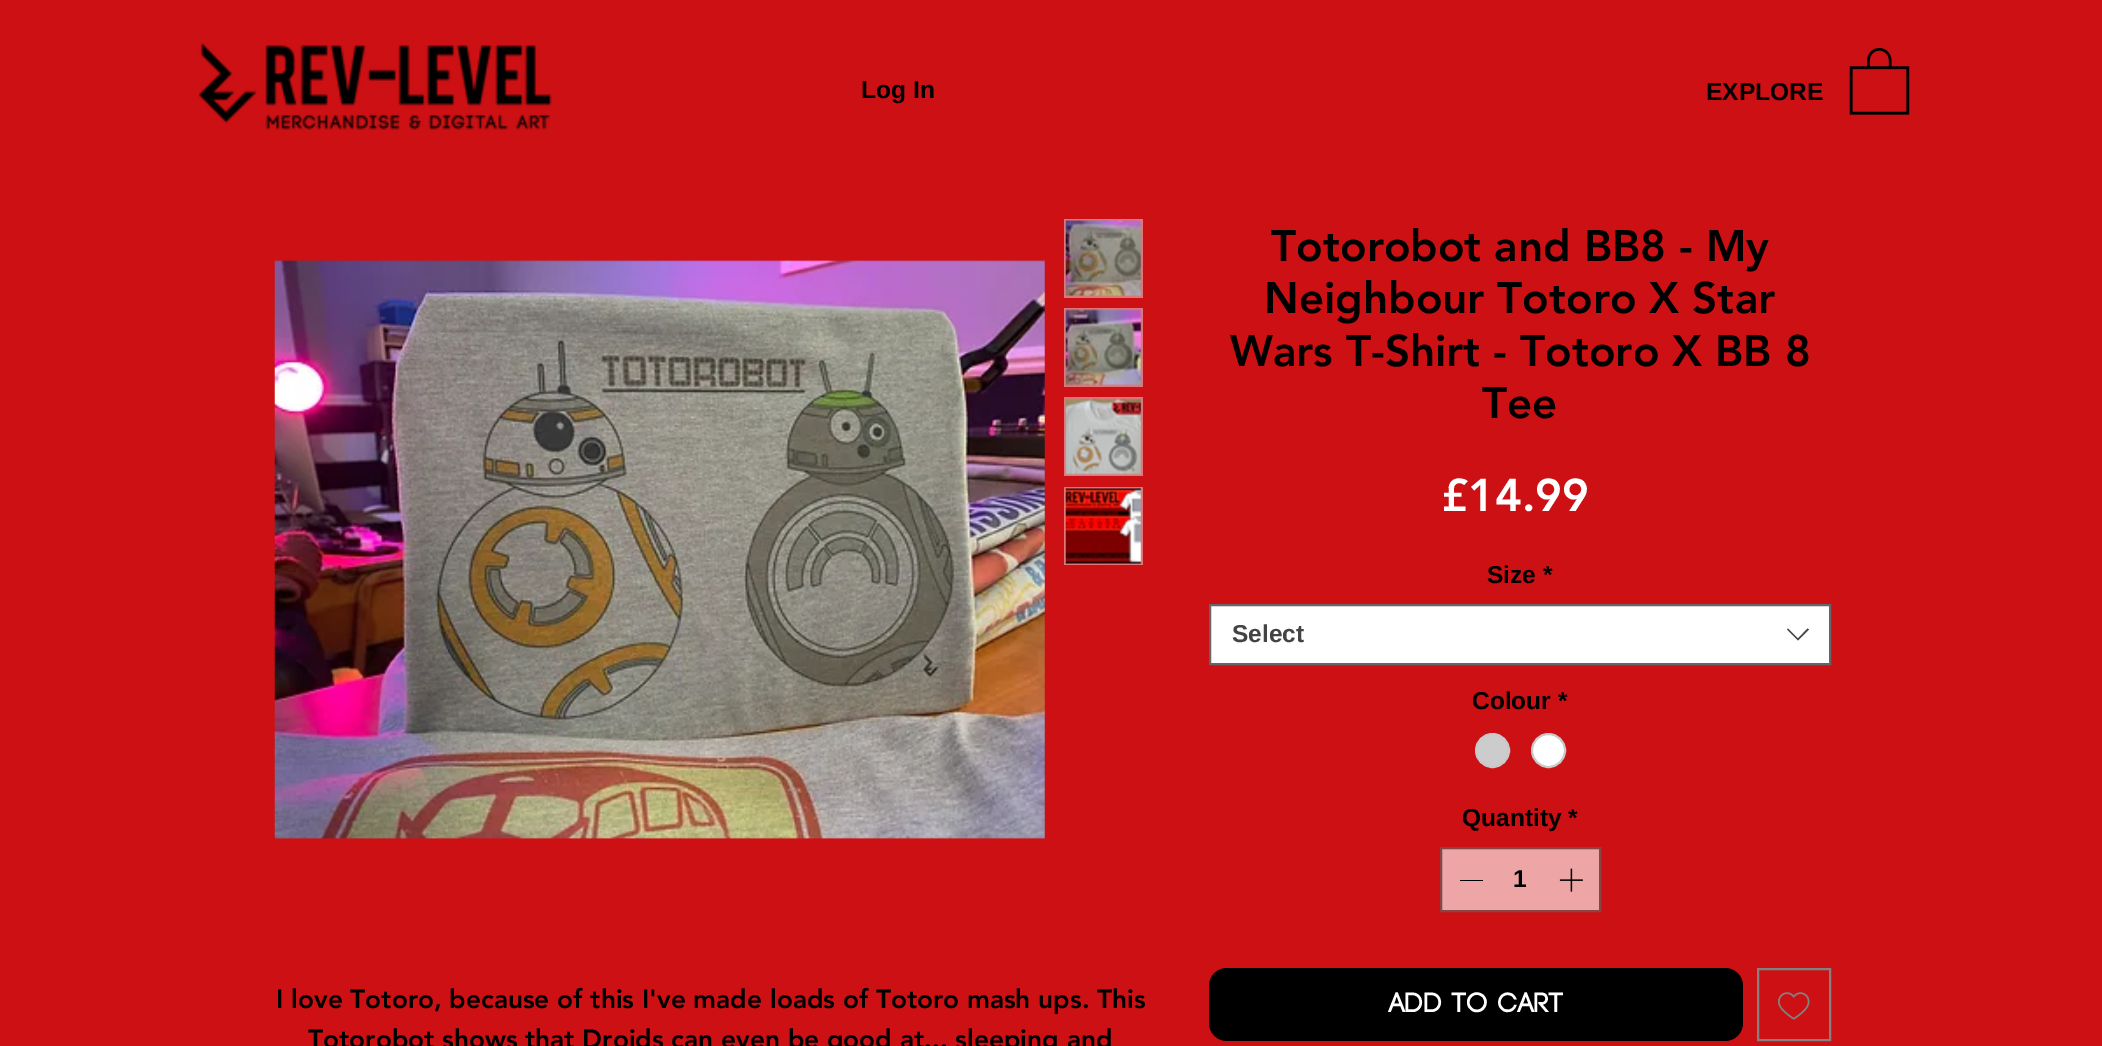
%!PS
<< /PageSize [2102 1046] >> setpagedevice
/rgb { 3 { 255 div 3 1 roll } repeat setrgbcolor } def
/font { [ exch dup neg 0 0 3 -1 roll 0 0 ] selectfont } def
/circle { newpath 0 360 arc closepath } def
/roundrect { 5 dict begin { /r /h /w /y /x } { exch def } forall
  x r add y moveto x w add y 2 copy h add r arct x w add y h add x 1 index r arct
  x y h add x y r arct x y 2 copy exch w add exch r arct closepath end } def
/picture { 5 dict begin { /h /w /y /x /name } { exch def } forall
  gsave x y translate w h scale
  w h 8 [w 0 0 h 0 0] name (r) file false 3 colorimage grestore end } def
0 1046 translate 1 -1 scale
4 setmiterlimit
204 16 19 rgb
0 0 2102 1046 rectfill
(img/1.rgb) 198 43 354 87 picture
(img/2.rgb) 1849 47 61 68 picture
(img/3.rgb) 274 260 771 579 picture
221 119 121 rgb
1064 219 79 79 rectfill
(img/4.rgb) 1065 220 77 76 picture
1064 308 79 79 rectfill
(img/5.rgb) 1065 309 77 77 picture
1064 397 79 79 rectfill
(img/6.rgb) 1065 398 77 77 picture
1064 487 79 78 rectfill
(img/7.rgb) 1065 487 77 77 picture
255 255 255 rgb
1210 605 moveto 1830 605 lineto 1830 664 lineto 1210 664 lineto closepath gsave fill grestore
102 102 102 rgb
2 setlinewidth
stroke
68 68 68 rgb
1807.5 628.5 moveto 1809 629.5 lineto 1798 640.5 lineto 1787 629.5 lineto 1788 628.5 lineto 1798 638.5 lineto closepath eofill
204 204 204 rgb
1492.5 750.5 16.5 circle gsave fill grestore
201 201 201 rgb
stroke
255 255 255 rgb
1548.5 750.5 16.5 circle gsave fill grestore
201 201 201 rgb
stroke
237 165 166 rgb
1441 848 moveto 1600 848 lineto 1600 911 lineto 1441 911 lineto closepath gsave fill grestore
136 69 70 rgb
stroke
0 0 0 rgb
1460 880 23 1 rectfill
(img/8.rgb) 1559 868 24 24 picture
1209 968 534 73 18 roundrect fill
130 130 130 rgb
1758 969 72 71 rectstroke
(img/9.rgb) 1778 992 32 28 picture
/LiberationSans-Bold 24.5 font
0 0 0 rgb
861 98 moveto (Log In) show
1706 100 moveto (EXPLORE) show
/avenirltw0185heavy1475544-Black 26.25 font
276 1008 moveto (I love Totoro, because of this I've made loads of Totoro mash ups. This) show
308 1048 moveto (Totorobot shows that Droids can even be good at... sleeping and) show
/avenirltw0185heavy1475544-Black 43.75 font
[
  [(Totorobot and BB8 - My) 1271 261]
  [(Neighbour Totoro X Star) 1264 313]
  [(Wars T-Shirt - Totoro X BB 8) 1230 366]
  [(Tee) 1482 418]
] { aload pop moveto show } forall
/avenirltw0185heavy1475544-Black 45.5 font
255 255 255 rgb
1441 511 moveto (£14.99) show
/LiberationSans-Bold 24.5 font
0 0 0 rgb
1487 583 moveto (Size *) show
68 68 68 rgb
1232 642 moveto (Select) show
0 0 0 rgb
[
  [(Colour *) 1472 709]
  [(Quantity *) 1462 826]
  [(1) 1513 887]
] { aload pop moveto show } forall
/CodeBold-Bold 28 font
255 255 255 rgb
1389 1012 moveto (ADD TO CART) show
showpage
